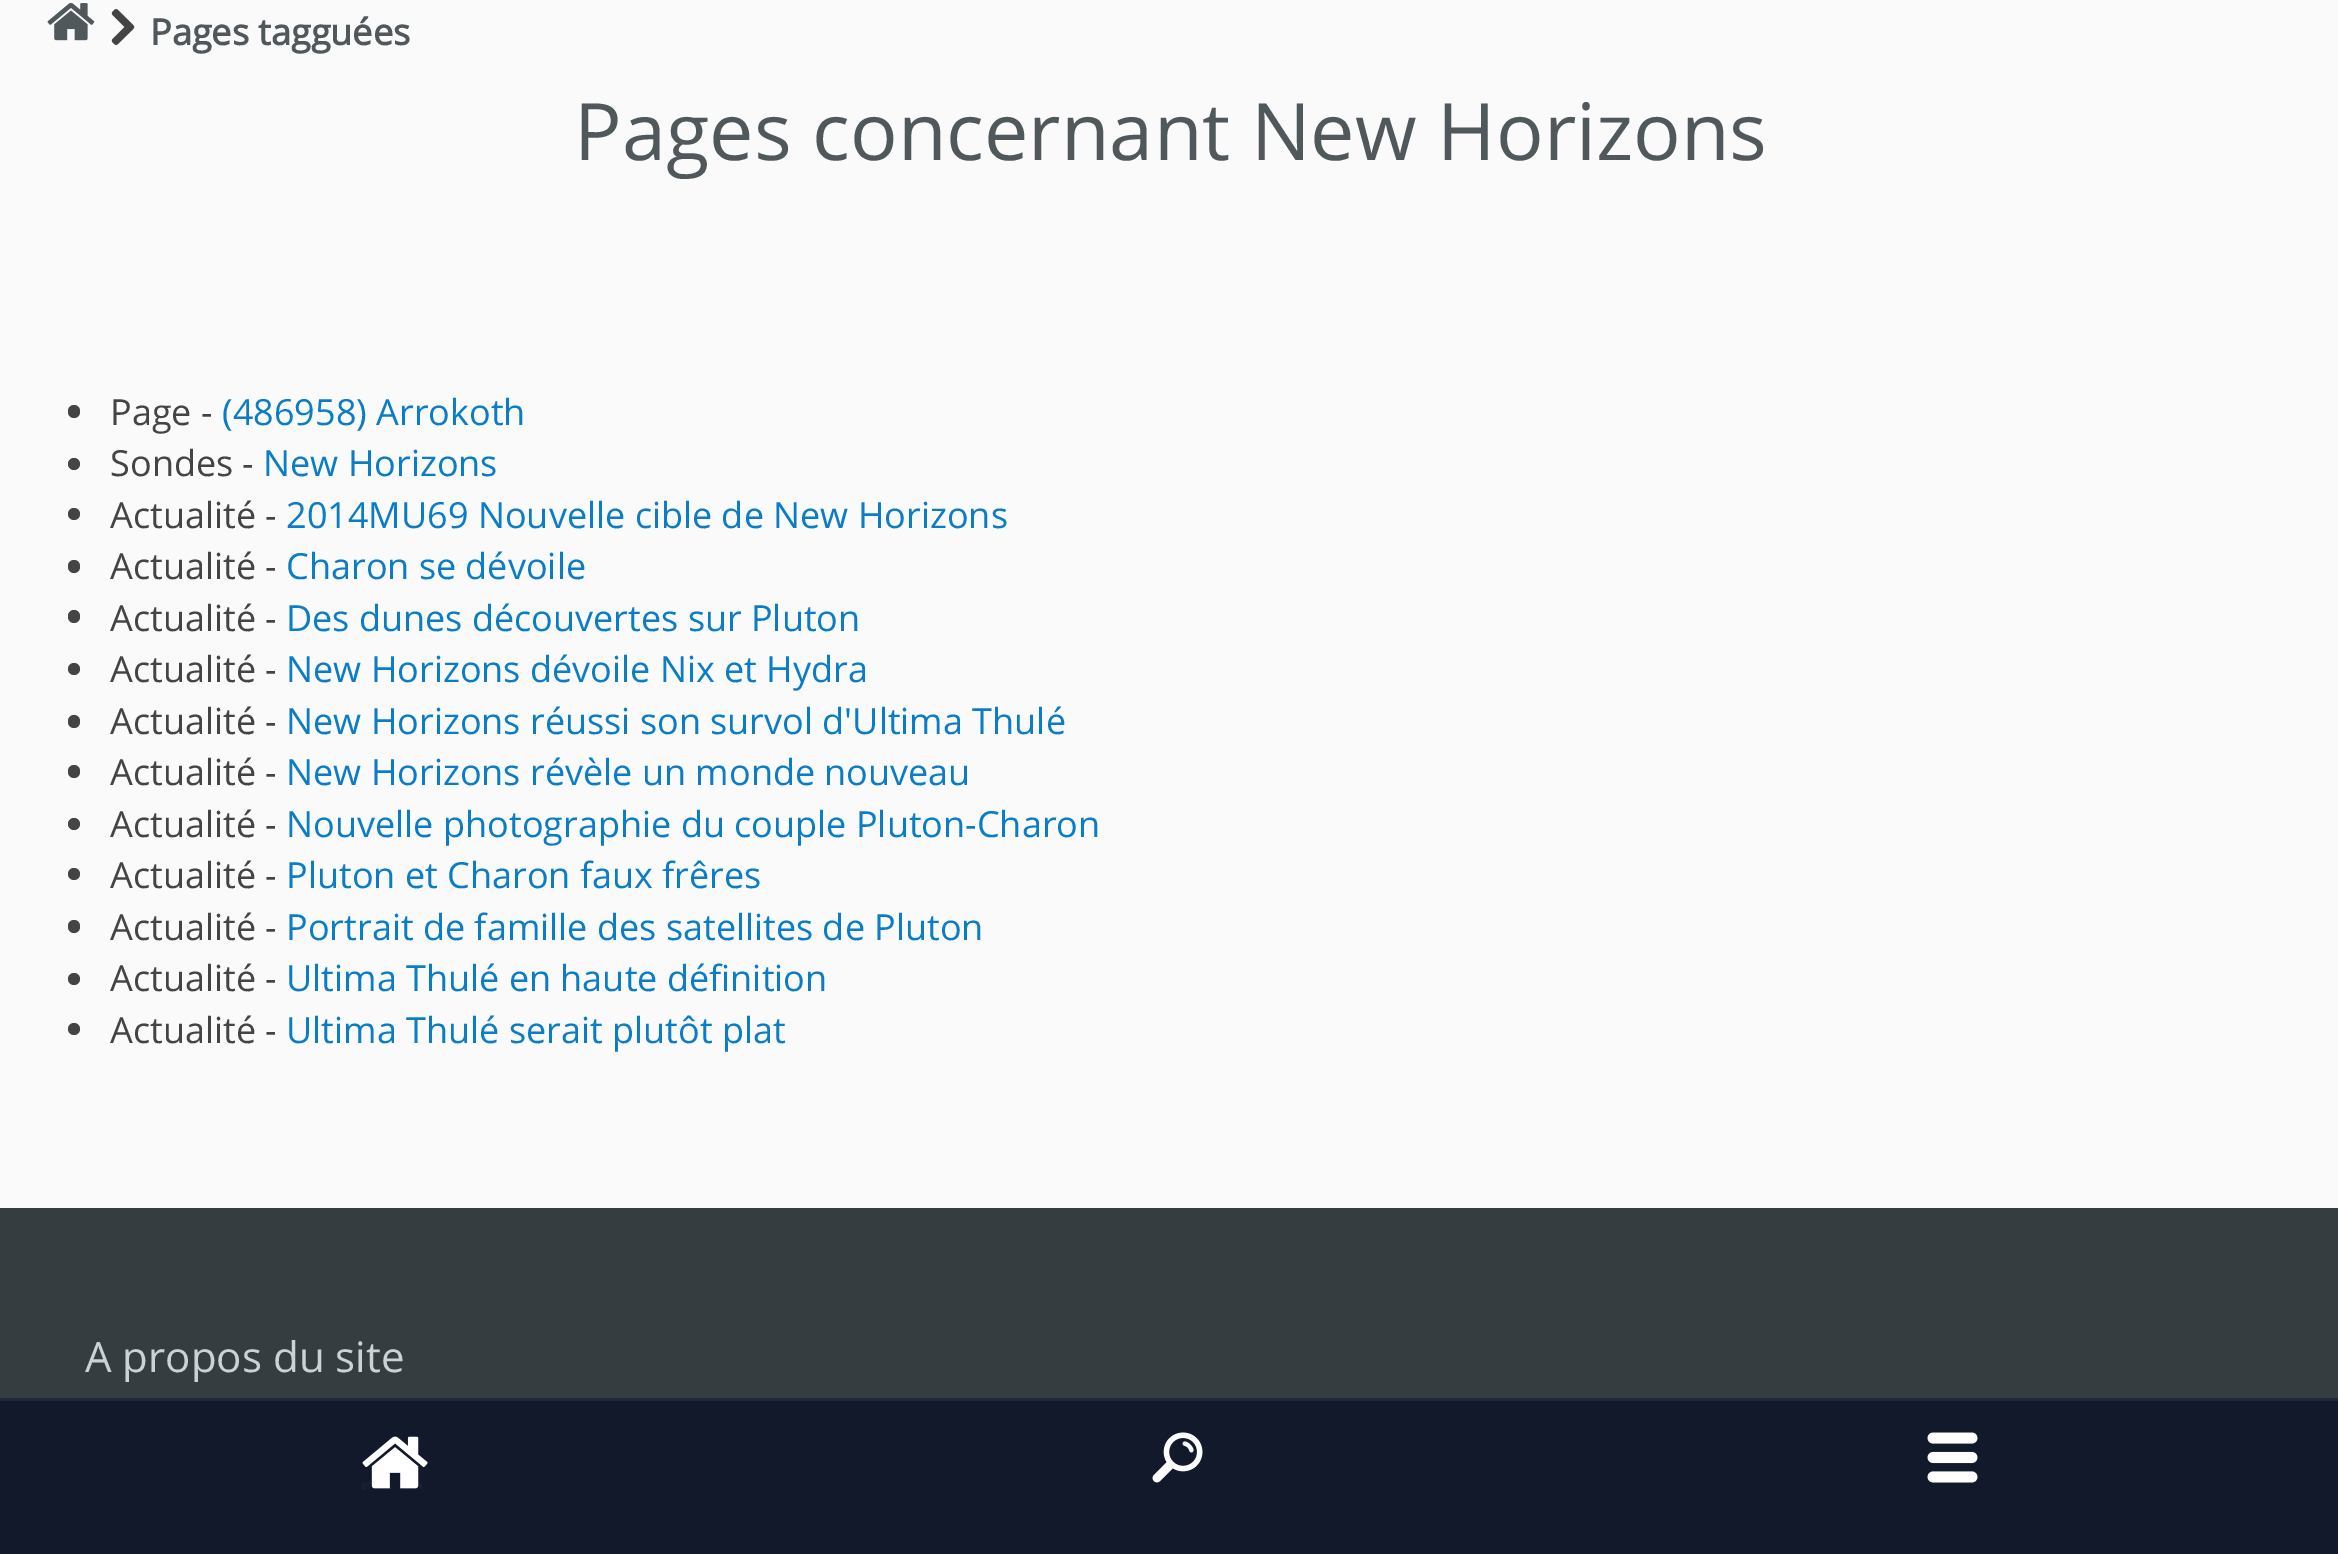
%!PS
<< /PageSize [2338 1554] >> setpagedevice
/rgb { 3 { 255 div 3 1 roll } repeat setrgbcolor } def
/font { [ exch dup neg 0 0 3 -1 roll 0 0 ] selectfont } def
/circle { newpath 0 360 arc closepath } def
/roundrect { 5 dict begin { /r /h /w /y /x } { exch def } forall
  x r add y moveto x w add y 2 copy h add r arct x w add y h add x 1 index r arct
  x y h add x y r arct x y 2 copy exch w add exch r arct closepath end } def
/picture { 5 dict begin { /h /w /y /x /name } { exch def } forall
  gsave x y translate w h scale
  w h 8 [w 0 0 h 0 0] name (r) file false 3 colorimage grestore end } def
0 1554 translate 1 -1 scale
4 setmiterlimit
250 250 250 rgb
0 0 2338 1554 rectfill
(img/1.rgb) 47 3 48 38 picture
(img/2.rgb) 111 9 24 36 picture
68 68 68 rgb
68 405 12 13 6 roundrect fill
74 464 6 circle fill
74 514 6 circle fill
68 560 12 13 6 roundrect fill
68 610 12 13 6 roundrect fill
74 669 6 circle fill
68 715 12 13 6 roundrect fill
68 765 12 13 6 roundrect fill
74 824 6 circle fill
74 874 6 circle fill
68 920 12 13 6 roundrect fill
74 979 6 circle fill
74 1029 6 circle fill
[
  [0 1208 2338 190 54 61 65]
  [0 1401 2338 153 17 25 43]
  [0 1398 2338 3 30 41 59]
] { aload pop rgb rectfill } forall
(img/3.rgb) 362 1436 66 53 picture
(img/4.rgb) 1152 1432 51 51 picture
(img/5.rgb) 1927 1432 51 51 picture
/OpenSans-Bold 36 font
80 88 92 rgb
150 45 moveto (Pages tagguées) show
/OpenSans-Regular 79.25 font
574 160 moveto (Pages concernant New Horizons) show
/OpenSans-Regular 36 font
68 68 68 rgb
110 425 moveto (Page -) show
11 124 198 rgb
222 425 moveto (\(486958\) Arrokoth) show
68 68 68 rgb
110 476 moveto (Sondes -) show
11 124 198 rgb
263 476 moveto (New Horizons) show
68 68 68 rgb
110 528 moveto (Actualité -) show
11 124 198 rgb
286 528 moveto (2014MU69 Nouvelle cible de New Horizons) show
68 68 68 rgb
110 579 moveto (Actualité -) show
11 124 198 rgb
286 579 moveto (Charon se dévoile) show
68 68 68 rgb
110 631 moveto (Actualité -) show
11 124 198 rgb
286 631 moveto (Des dunes découvertes sur Pluton) show
68 68 68 rgb
110 682 moveto (Actualité -) show
11 124 198 rgb
286 682 moveto (New Horizons dévoile Nix et Hydra) show
68 68 68 rgb
110 734 moveto (Actualité -) show
11 124 198 rgb
286 734 moveto (New Horizons réussi son survol d'Ultima Thulé) show
68 68 68 rgb
110 785 moveto (Actualité -) show
11 124 198 rgb
286 785 moveto (New Horizons révèle un monde nouveau) show
68 68 68 rgb
110 837 moveto (Actualité -) show
11 124 198 rgb
286 837 moveto (Nouvelle photographie du couple Pluton-Charon) show
68 68 68 rgb
110 888 moveto (Actualité -) show
11 124 198 rgb
286 888 moveto (Pluton et Charon faux frêres) show
68 68 68 rgb
110 940 moveto (Actualité -) show
11 124 198 rgb
286 940 moveto (Portrait de famille des satellites de Pluton) show
68 68 68 rgb
110 991 moveto (Actualité -) show
11 124 198 rgb
286 991 moveto (Ultima Thulé en haute définition) show
68 68 68 rgb
110 1043 moveto (Actualité -) show
11 124 198 rgb
286 1043 moveto (Ultima Thulé serait plutôt plat) show
/OpenSans-Regular 42 font
202 210 215 rgb
85 1372 moveto (A propos du site) show
showpage
